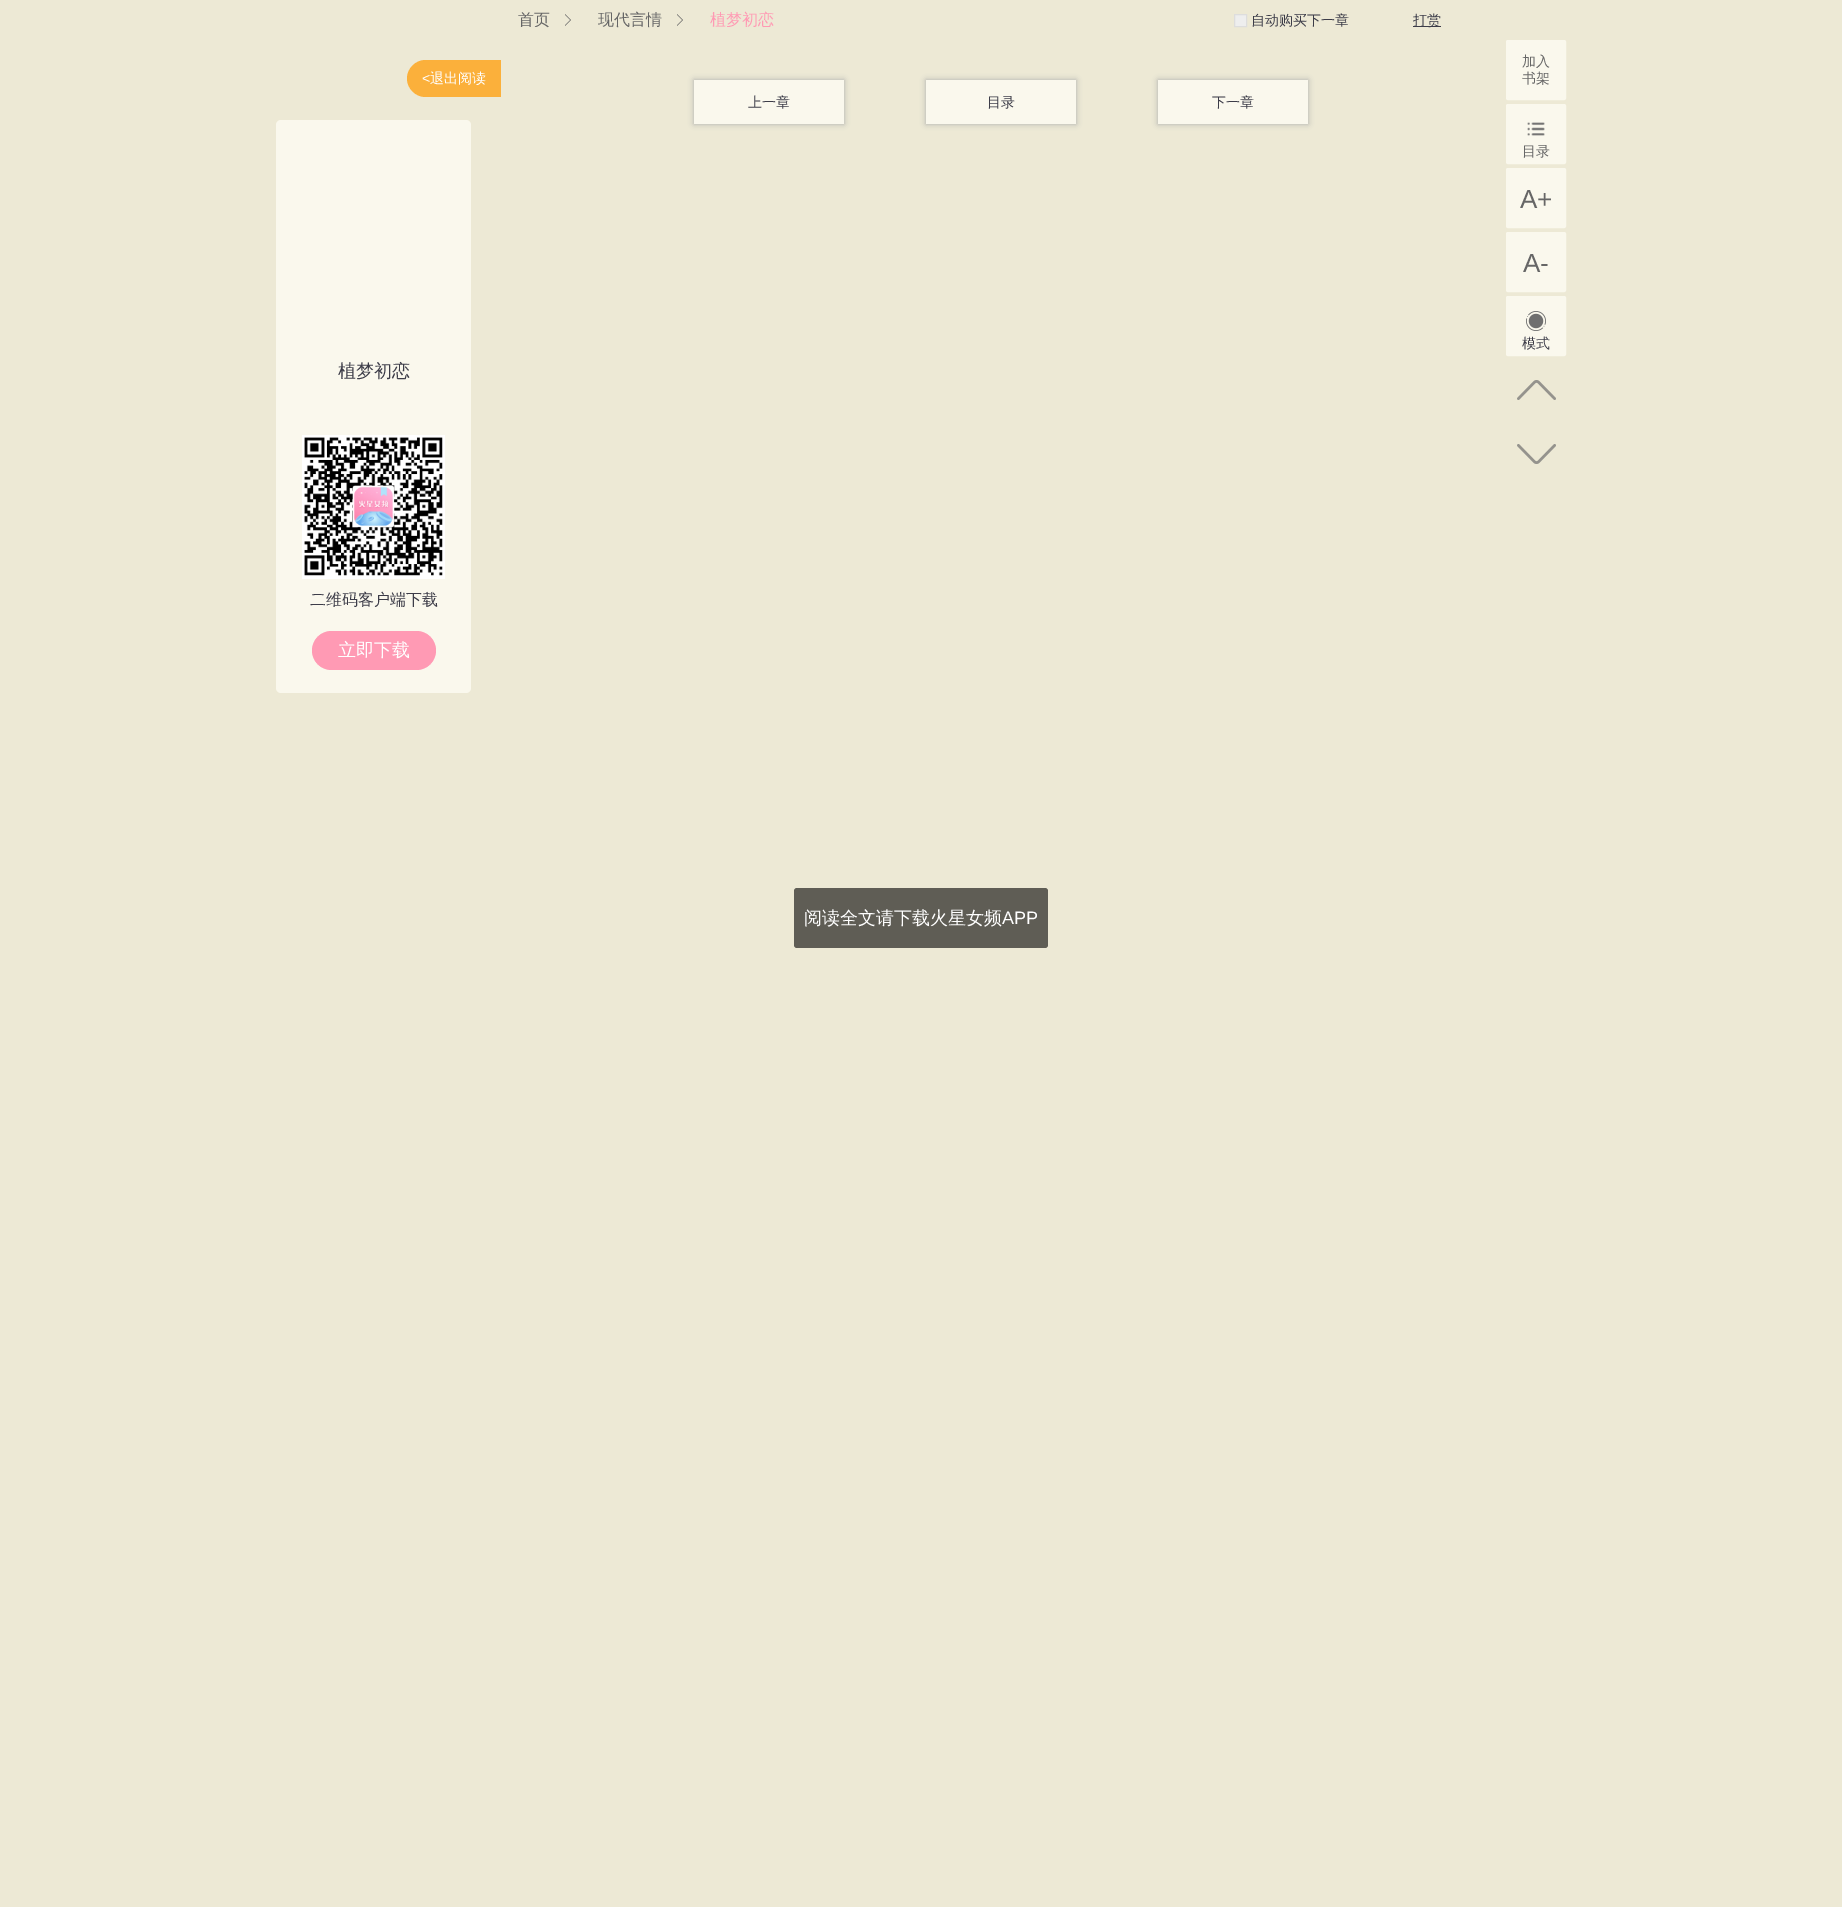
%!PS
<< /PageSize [1842 1907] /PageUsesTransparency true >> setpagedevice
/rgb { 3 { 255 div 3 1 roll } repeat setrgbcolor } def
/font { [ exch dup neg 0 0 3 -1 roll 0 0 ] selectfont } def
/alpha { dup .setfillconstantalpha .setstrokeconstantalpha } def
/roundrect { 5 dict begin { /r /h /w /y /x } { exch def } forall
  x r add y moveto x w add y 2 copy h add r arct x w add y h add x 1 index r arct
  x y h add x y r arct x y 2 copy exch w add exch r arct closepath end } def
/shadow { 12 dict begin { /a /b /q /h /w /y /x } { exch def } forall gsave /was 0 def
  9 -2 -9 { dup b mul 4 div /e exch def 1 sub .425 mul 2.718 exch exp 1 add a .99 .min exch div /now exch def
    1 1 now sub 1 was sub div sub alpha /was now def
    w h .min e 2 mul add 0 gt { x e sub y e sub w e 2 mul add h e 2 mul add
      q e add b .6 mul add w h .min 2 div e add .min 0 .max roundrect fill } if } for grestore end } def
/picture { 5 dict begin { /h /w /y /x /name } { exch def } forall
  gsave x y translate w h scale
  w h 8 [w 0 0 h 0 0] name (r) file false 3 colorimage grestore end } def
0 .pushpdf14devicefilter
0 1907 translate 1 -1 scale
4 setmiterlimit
237 233 213 rgb
0 0 1842 1907 rectfill
102 102 102 rgb
565 26 moveto 565 14 lineto 571 20 lineto closepath fill
237 233 213 rgb
564 26 moveto 564 14 lineto 570 20 lineto closepath fill
102 102 102 rgb
677 26 moveto 677 14 lineto 683 20 lineto closepath fill
237 233 213 rgb
676 26 moveto 676 14 lineto 682 20 lineto closepath fill
238 238 238 rgb
1234.5 14.5 moveto 1246.5 14.5 lineto 1246.5 26.5 lineto 1234.5 26.5 lineto closepath gsave fill grestore
221 221 221 rgb
stroke
60 60 72 rgb
1413 26 28 1 rectfill
251 176 59 rgb
425.5 60 moveto 501 60 lineto 501 97 lineto 425.5 97 lineto 415.5 97 407 88.5 407 78.5 curveto 407 68.5 415.5 60 425.5 60 curveto closepath fill
170 170 170 rgb
694 80 150 44 0 3 1 shadow
250 248 237 rgb
694 80 150 44 rectfill
170 170 170 rgb
926 80 150 44 0 3 1 shadow
250 248 237 rgb
926 80 150 44 rectfill
170 170 170 rgb
1158 80 150 44 0 3 1 shadow
250 248 237 rgb
1158 80 150 44 rectfill
1506.5 40.5 59 59 1.5 roundrect gsave fill grestore
stroke
1506.5 104.5 59 59 1.5 roundrect gsave fill grestore
stroke
(img/1.rgb) 1527 122 18 14 picture
1506.5 168.5 59 59 1.5 roundrect gsave fill grestore
stroke
1506.5 232.5 59 59 1.5 roundrect gsave fill grestore
stroke
1506.5 296.5 59 59 1.5 roundrect gsave fill grestore
stroke
(img/2.rgb) 1526 311 20 20 picture
(img/3.rgb) 1517 380 39 20 picture
(img/4.rgb) 1517 444 39 20 picture
276 120 195 573 5 roundrect fill
(img/5.rgb) 302 435 143 144 picture
255 154 180 rgb
312 631 124 39 19.5 roundrect fill
95 93 85 rgb
794 888 254 60 3 roundrect fill
/WenQuanYiZenHei-Medium 16 font
102 102 102 rgb
518 25 moveto (首页) show
598 25 moveto (现代言情) show
255 154 180 rgb
710 25 moveto (植梦初恋) show
/WenQuanYiZenHei-Medium 14 font
60 60 72 rgb
1251 25 moveto (自动购买下一章) show
1413 25 moveto (打赏) show
/LiberationSans-Regular 14 font
255 255 255 rgb
422 83 moveto (<) show
/WenQuanYiZenHei-Medium 14 font
430 83 moveto (退出阅读) show
60 60 72 rgb
[
  [(上一章) 748 107]
  [(目录) 987 107]
  [(下一章) 1212 107]
] { aload pop moveto show } forall
102 102 102 rgb
[
  [(加入) 1522 66]
  [(书架) 1522 83]
  [(目录) 1522 156]
] { aload pop moveto show } forall
/LiberationSans-Regular 26 font
1520 208 moveto (A+) show
1523 272 moveto (A-) show
/WenQuanYiZenHei-Medium 14 font
60 60 72 rgb
1522 348 moveto (模式) show
/WenQuanYiZenHei-Medium 18 font
338 377 moveto (植梦初恋) show
/WenQuanYiZenHei-Medium 16 font
310 605 moveto (二维码客户端下载) show
/WenQuanYiZenHei-Medium 18 font
255 255 255 rgb
338 656 moveto (立即下载) show
804 924 moveto (阅读全文请下载火星女频) show
/LiberationSans-Regular 18 font
1002 924 moveto (APP) show
.poppdf14devicefilter showpage
